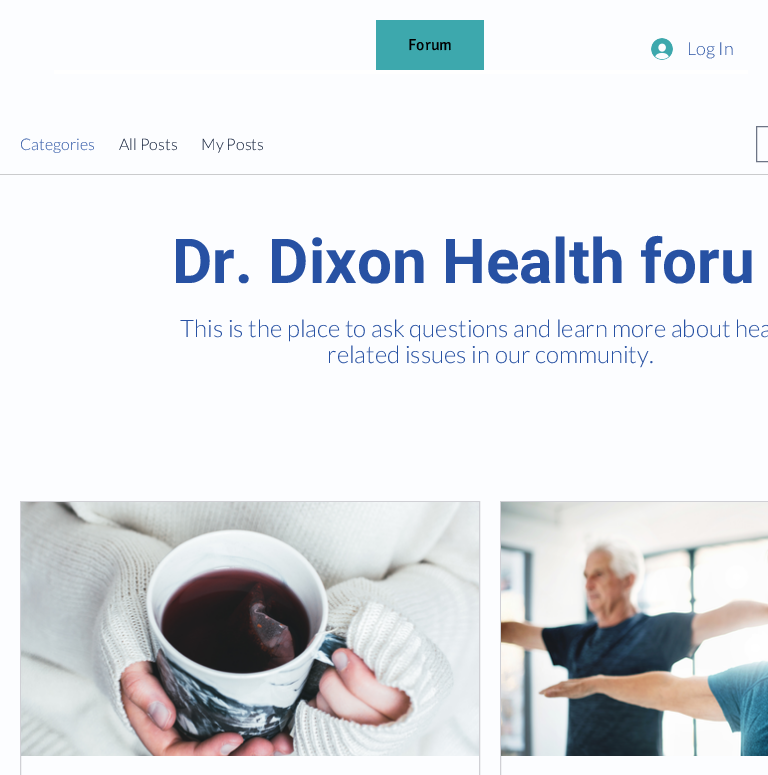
%!PS
<< /PageSize [768 775] >> setpagedevice
/rgb { 3 { 255 div 3 1 roll } repeat setrgbcolor } def
/font { [ exch dup neg 0 0 3 -1 roll 0 0 ] selectfont } def
/picture { 5 dict begin { /h /w /y /x /name } { exch def } forall
  gsave x y translate w h scale
  w h 8 [w 0 0 h 0 0] name (r) file false 3 colorimage grestore end } def
0 775 translate 1 -1 scale
4 setmiterlimit
252 253 255 rgb
0 0 768 775 rectfill
255 255 255 rgb
54 70 694 4 rectfill
61 168 173 rgb
376 20 108 50 rectfill
(img/1.rgb) 651 38 22 22 picture
202 203 205 rgb
0 174 768 1 rectfill
109 117 134 rgb
756.5 126.5 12 35 rectstroke
208 208 213 rgb
20.5 501.5 459 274 rectstroke
(img/2.rgb) 21 502 458 254 picture
500.5 501.5 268 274 rectstroke
(img/3.rgb) 501 502 267 254 picture
/Signika-Regular 16 font
0 0 0 rgb
408 50 moveto (Forum) show
/Lato-Light 18 font
39 81 163 rgb
687 55 moveto (Log In) show
/Lato-Light 16 font
20 150 moveto (Categories) show
13 27 54 rgb
119 150 moveto (All Posts) show
201 150 moveto (My Posts) show
/Roboto-Bold 62 font
39 81 163 rgb
172 283 moveto (Dr. Dixon Health foru) show
/Lato-Light 24 font
180 337 moveto (This is the place to ask questions and learn more about hea) show
327 363 moveto (related issues in our community.) show
showpage
